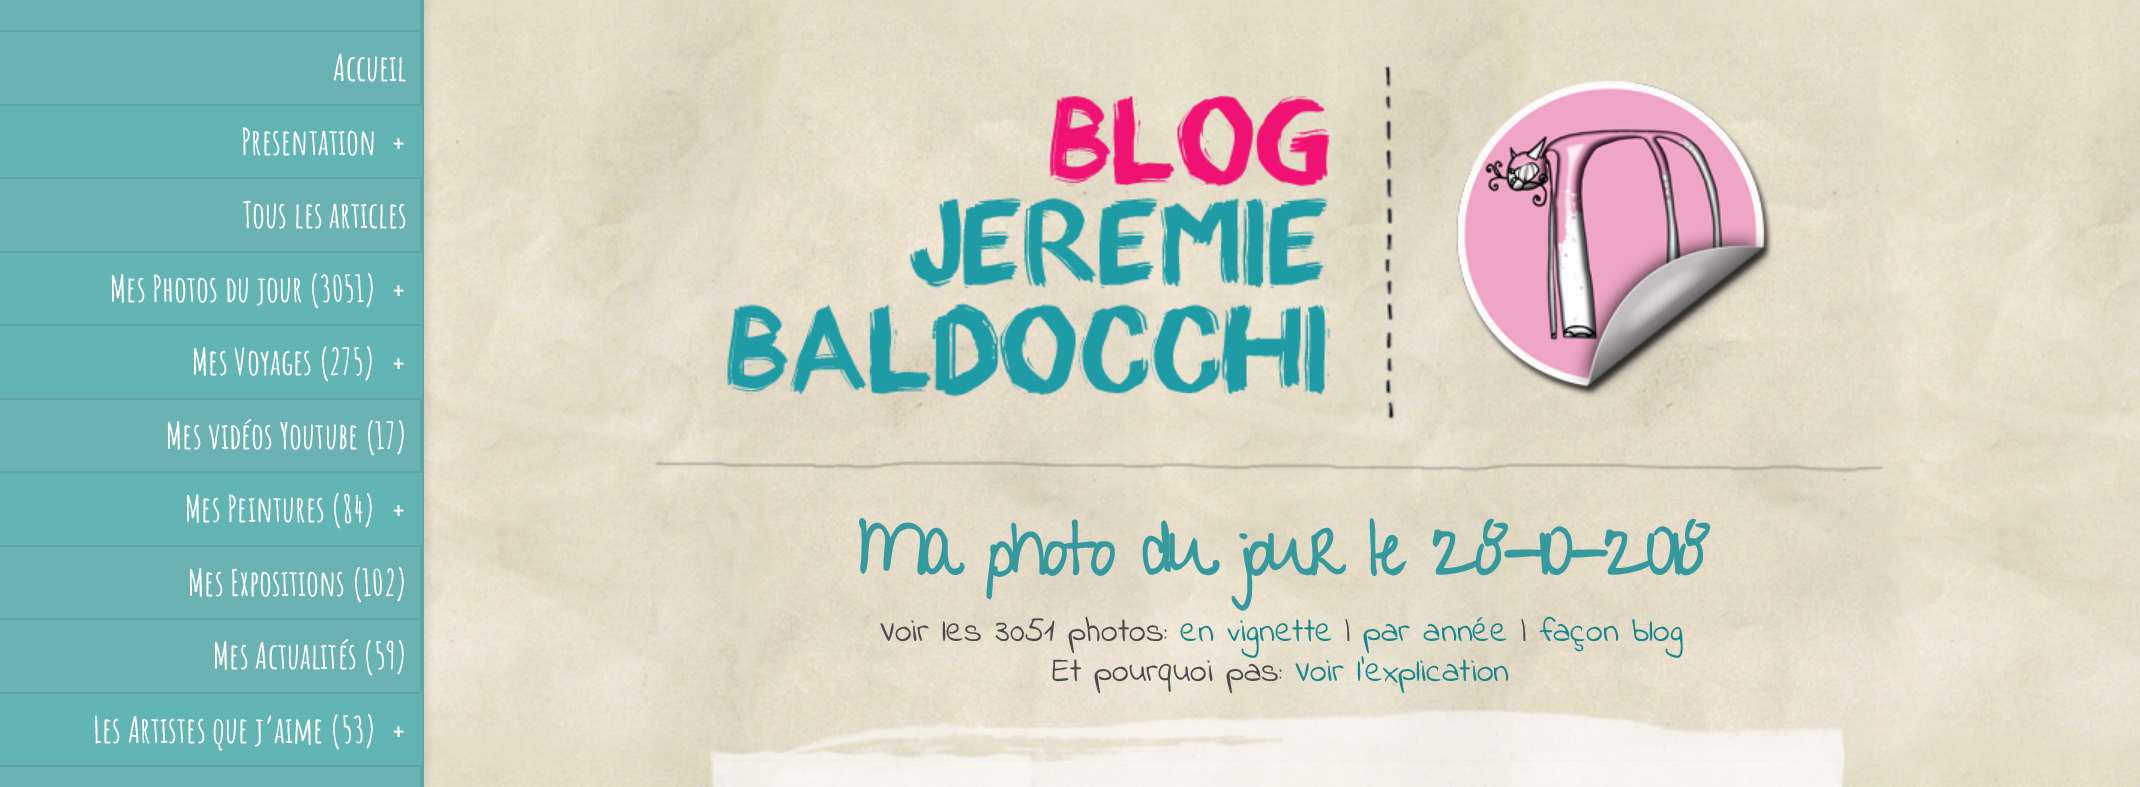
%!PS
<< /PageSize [2140 787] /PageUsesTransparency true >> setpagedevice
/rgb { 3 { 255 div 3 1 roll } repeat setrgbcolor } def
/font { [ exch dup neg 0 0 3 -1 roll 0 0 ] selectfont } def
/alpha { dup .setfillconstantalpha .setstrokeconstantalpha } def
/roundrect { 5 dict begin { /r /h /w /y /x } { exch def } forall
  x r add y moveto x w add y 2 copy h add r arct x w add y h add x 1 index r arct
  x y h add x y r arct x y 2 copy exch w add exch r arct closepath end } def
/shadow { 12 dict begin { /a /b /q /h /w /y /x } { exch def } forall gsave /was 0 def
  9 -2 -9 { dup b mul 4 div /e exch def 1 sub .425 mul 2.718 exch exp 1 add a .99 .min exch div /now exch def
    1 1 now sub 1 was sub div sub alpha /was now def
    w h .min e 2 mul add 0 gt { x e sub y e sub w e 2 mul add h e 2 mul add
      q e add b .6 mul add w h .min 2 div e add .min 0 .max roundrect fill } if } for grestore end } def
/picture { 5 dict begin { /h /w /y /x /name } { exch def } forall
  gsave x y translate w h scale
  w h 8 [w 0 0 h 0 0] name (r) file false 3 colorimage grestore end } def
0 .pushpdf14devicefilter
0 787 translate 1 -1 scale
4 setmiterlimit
255 255 255 rgb
0 0 2140 787 rectfill
(img/1.rgb) 424 0 1716 787 picture
0 0 0 rgb
6 0 422 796 0 3 0.08 shadow
[
  [0 0 420 787 106 179 178]
  [420 0 4 787 94 165 164]
  [0 30 422 2 94 165 164]
  [0 104 422 2 94 165 164]
  [0 106 422 71 99 181 179]
  [0 177 422 2 94 165 164]
  [0 251 422 2 94 165 164]
  [0 253 422 71 99 181 179]
  [0 324 422 2 94 165 164]
  [0 326 422 72 99 181 179]
  [0 398 422 2 94 165 164]
  [0 471 422 2 94 165 164]
  [0 473 422 72 99 181 179]
  [0 545 422 2 94 165 164]
  [0 618 422 2 94 165 164]
  [0 692 422 2 94 165 164]
  [0 694 422 71 99 181 179]
  [0 765 422 2 94 165 164]
] { aload pop rgb rectfill } forall
(img/2.rgb) 654 65 1230 408 picture
(img/3.rgb) 711 760 1135 27 picture
(img/4.rgb) 709 709 1137 52 picture
/AmaticSC-Bold 36 font
255 255 255 rgb
[
  [(Accueil) 333 81]
  [(Presentation) 241 155]
  [(+) 391 155]
  [(Tous les articles) 243 228]
  [(Mes Photos du jour \(3051\)) 110 302]
  [(+) 391 302]
  [(Mes Voyages \(275\)) 192 375]
  [(+) 391 375]
  [(Mes vidéos Youtube \(17\)) 166 449]
  [(Mes Peintures \(84\)) 185 522]
  [(+) 391 522]
  [(Mes Expositions \(102\)) 188 596]
  [(Mes Actualités \(59\)) 213 669]
  [(Les Artistes que j’aime \(53\)) 93 743]
  [(+) 391 743]
] { aload pop moveto show } forall
/GiveYouGlory-Bold 72 font
54 153 157 rgb
858 575 moveto -4.5 0 (Ma photo du jour le 28-10-2018) ashow
/IndieFlower-Regular 34.5 font
74 75 75 rgb
880 641 moveto (Voir les 3051 photos:) show
24 134 138 rgb
1180 641 moveto (en vignette) show
74 75 75 rgb
1345 641 moveto (|) show
24 134 138 rgb
1363 641 moveto (par année) show
74 75 75 rgb
1521 641 moveto (|) show
24 134 138 rgb
1540 641 moveto (façon blog) show
74 75 75 rgb
1052 681 moveto (Et pourquoi pas:) show
24 134 138 rgb
1295 681 moveto (Voir l'explication) show
.poppdf14devicefilter showpage
